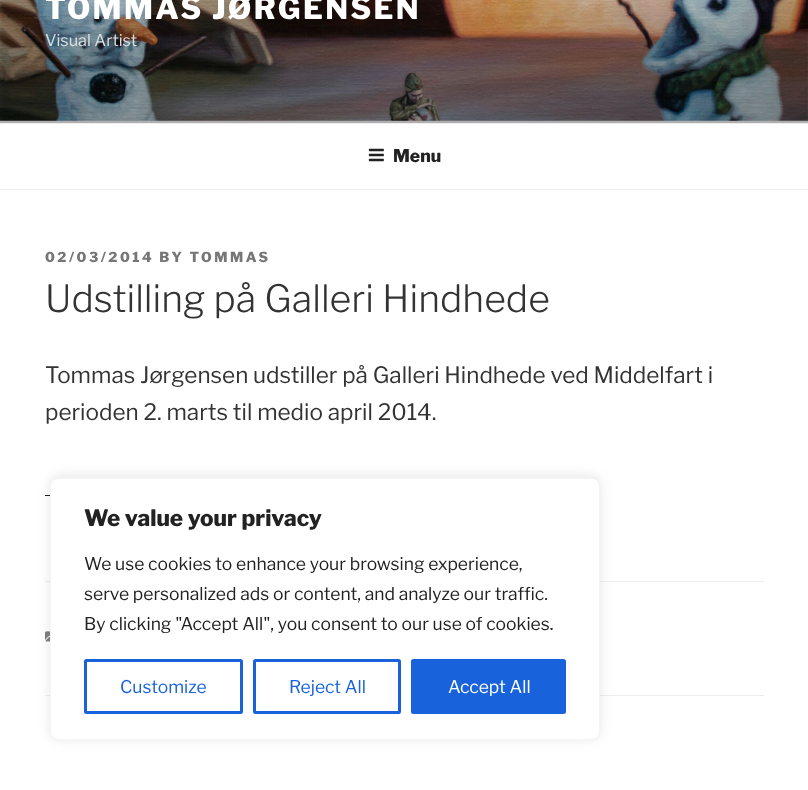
<svg xmlns="http://www.w3.org/2000/svg" width="808" height="790">
<defs>
<linearGradient id="g1" gradientUnits="userSpaceOnUse" x1="404" y1="-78" x2="404" y2="123"><stop offset="0" stop-color="#000" stop-opacity="0"/><stop offset="0.75" stop-color="#000" stop-opacity="0.3"/><stop offset="1" stop-color="#000" stop-opacity="0.3"/></linearGradient>
</defs>
<rect width="100%" height="100%" fill="#fff"/>
<rect y="120" width="808" height="3" fill="#fafafa"/>
<image x="0" y="0" width="808" height="121" href="media/1.png"/>
<rect width="808" height="123" fill="url(#g1)"/>
<text x="45" y="19" style="font-family:Libre Franklin;font-size:30px;font-weight:100;letter-spacing:2.4px;fill:#fff">TOMMAS JØRGENSEN</text>
<text x="45" y="46" style="font-family:'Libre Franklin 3';font-size:16.25px;font-weight:100;fill:#dcdfe1">Visual Artist</text>
<rect y="123" width="808" height="1" fill="#eee"/>
<rect y="189" width="808" height="1" fill="#eee"/>
<image x="368" y="148" width="16" height="14" href="media/2.png"/>
<text x="393" y="162" style="font-family:Libre Franklin;font-size:17.5px;font-weight:100;fill:#222">Menu</text>
<text x="45" y="262" style="font-family:Libre Franklin;font-size:13.75px;font-weight:100;letter-spacing:2.5px;fill:#767676">02/03/2014 BY TOMMAS</text>
<text x="45" y="312" style="font-family:'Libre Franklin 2';font-size:37.5px;font-weight:100;fill:#333">Udstilling på Galleri Hindhede</text>
<text x="45" y="383" style="font-family:'Libre Franklin 3';font-size:22.5px;font-weight:100;fill:#333">Tommas Jørgensen udstiller på Galleri Hindhede ved Middelfart i</text>
<text x="45" y="420" style="font-family:'Libre Franklin 3';font-size:22.5px;font-weight:100;fill:#333">perioden 2. marts til medio april 2014.</text>
<rect x="45" y="495" width="5" height="1" fill="#0f0f0f"/>
<rect x="45" y="581" width="719" height="1" fill="#eee"/>
<rect x="45" y="695" width="719" height="1" fill="#eee"/>
<image x="45" y="631" width="5" height="11" href="media/3.png"/>
<rect x="50" y="476" width="550" height="263" rx="8" fill="#acabab4d" filter="blur(6px)"/>
<rect x="50.5" y="478.5" width="549" height="261" rx="7.5" fill="#fff" stroke="#f4f4f4"/>
<text x="84" y="526" style="font-family:Libre Franklin;font-size:22.5px;font-weight:100;fill:#222">We value your privacy</text>
<text x="84" y="570" style="font-family:'Libre Franklin 3';font-size:17.5px;font-weight:100;fill:#222">We use cookies to enhance your browsing experience,</text>
<text x="84" y="600" style="font-family:'Libre Franklin 3';font-size:17.5px;font-weight:100;fill:#222">serve personalized ads or content, and analyze our traffic.</text>
<text x="84" y="630" style="font-family:'Libre Franklin 3';font-size:17.5px;font-weight:100;fill:#222">By clicking "Accept All", you consent to our use of cookies.</text>
<rect x="85.5" y="660.5" width="156" height="52" rx="1" fill="none" stroke="#1863dc" stroke-width="3"/>
<text x="120" y="693" style="font-family:'Libre Franklin 3';font-size:17.5px;font-weight:100;fill:#1863dc">Customize</text>
<rect x="254.5" y="660.5" width="145" height="52" rx="1" fill="none" stroke="#1863dc" stroke-width="3"/>
<text x="289" y="693" style="font-family:'Libre Franklin 3';font-size:17.5px;font-weight:100;fill:#1863dc">Reject All</text>
<rect x="412.5" y="660.5" width="152" height="52" rx="1" fill="#1863dc" stroke="#1863dc" stroke-width="3"/>
<text x="448" y="693" style="font-family:'Libre Franklin 3';font-size:17.5px;font-weight:100;fill:#fff">Accept All</text>
</svg>
